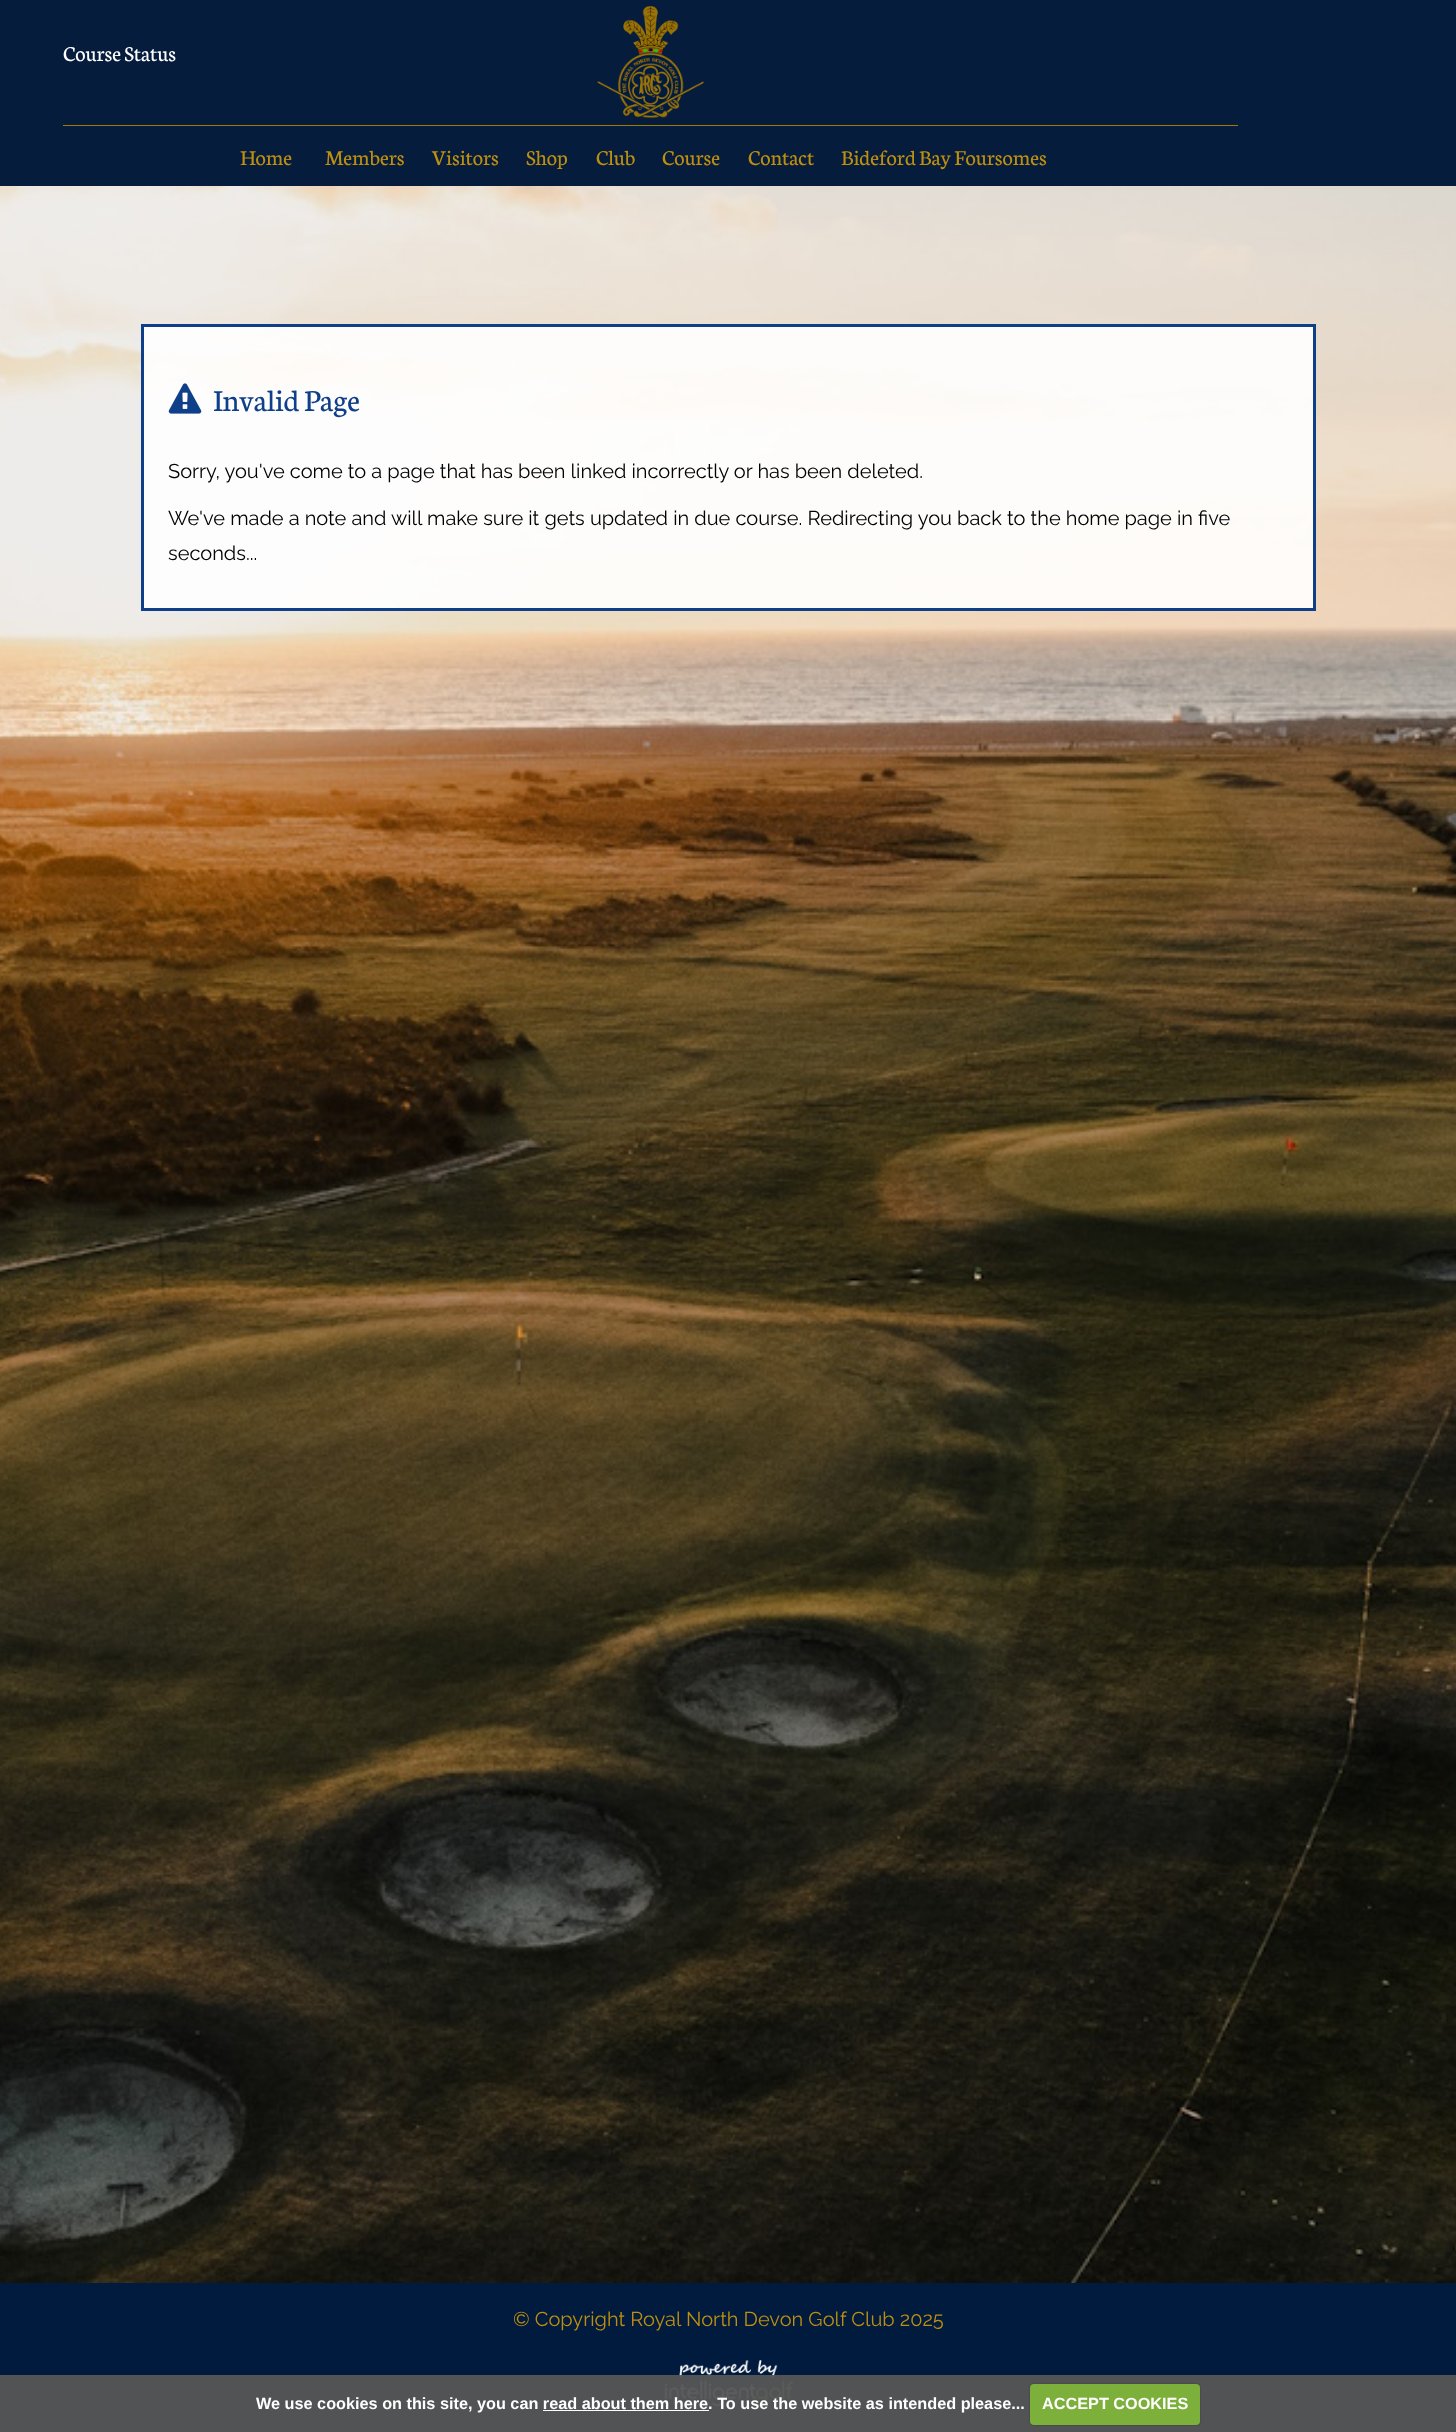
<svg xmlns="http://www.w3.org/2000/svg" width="1456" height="2432">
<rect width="100%" height="100%" fill="#fff"/>
<image x="0" y="186" width="1456" height="2097" href="media/1.png"/>
<rect width="1456" height="186" fill="#061c3d"/>
<text x="63" y="61" style="font-family:Neuton;font-size:22.5px;fill:#fff">Course Status</text>
<image x="597" y="6" width="107" height="112" href="media/2.png"/>
<rect x="63" y="125" width="1175" height="1" fill="#a27a08"/>
<text x="240" y="165" style="font-family:Neuton;font-size:22.5px;fill:#bd8f10">Home</text>
<text x="325" y="165" style="font-family:Neuton;font-size:22.5px;fill:#bd8f10">Members</text>
<text x="432" y="165" style="font-family:Neuton;font-size:22.5px;fill:#bd8f10">Visitors</text>
<text x="526" y="165" style="font-family:Neuton;font-size:22.5px;fill:#bd8f10">Shop</text>
<text x="596" y="165" style="font-family:Neuton;font-size:22.5px;fill:#bd8f10">Club</text>
<text x="662" y="165" style="font-family:Neuton;font-size:22.5px;fill:#bd8f10">Course</text>
<text x="748" y="165" style="font-family:Neuton;font-size:22.5px;fill:#bd8f10">Contact</text>
<text x="841" y="165" style="font-family:Neuton;font-size:22.5px;fill:#bd8f10">Bideford Bay Foursomes</text>
<rect x="142.5" y="325.5" width="1172" height="284" fill="#ffffffe6" stroke="#0e3f88" stroke-width="3"/>
<image x="168" y="383" width="34" height="31" href="media/3.png"/>
<text x="213" y="411" style="font-family:Neuton;font-size:32.5px;fill:#0e3f88">Invalid Page</text>
<text x="168" y="478" style="font-family:Raleway;font-size:20px;fill:#000">Sorry, you've come to a page that has been linked incorrectly or has been deleted.</text>
<text x="168" y="525" style="font-family:Raleway;font-size:20px;fill:#000">We've made a note and will make sure it gets updated in due course. Redirecting you back to the home page in five</text>
<text x="168" y="560" style="font-family:Raleway;font-size:20px;fill:#000">seconds...</text>
<rect y="2283" width="1456" height="149" fill="#001b3e"/>
<text x="513" y="2326" style="font-family:Raleway;font-size:20px;fill:#bd8f10">© Copyright Royal North Devon Golf Club 2025</text>
<image x="664" y="2359" width="130" height="48" href="media/4.png"/>
<rect y="2375" width="1456" height="57" fill="#565656f2"/>
<text x="256" y="2409" style="font-family:Liberation Sans;font-size:16.25px;font-weight:bold;fill:#fff">We use cookies on this site, you can read about them here. To use the website as intended please...</text>
<rect x="1030" y="2384" width="170" height="41" rx="4" fill="#00000040" filter="blur(1px)"/>
<rect x="1030" y="2384" width="170" height="41" rx="4" fill="#7daf3b"/>
<text x="1042" y="2409" style="font-family:Liberation Sans;font-size:16.25px;font-weight:bold;fill:#fff">ACCEPT COOKIES</text>
<rect x="543" y="2410" width="166" height="1" fill="#fff"/>
</svg>
